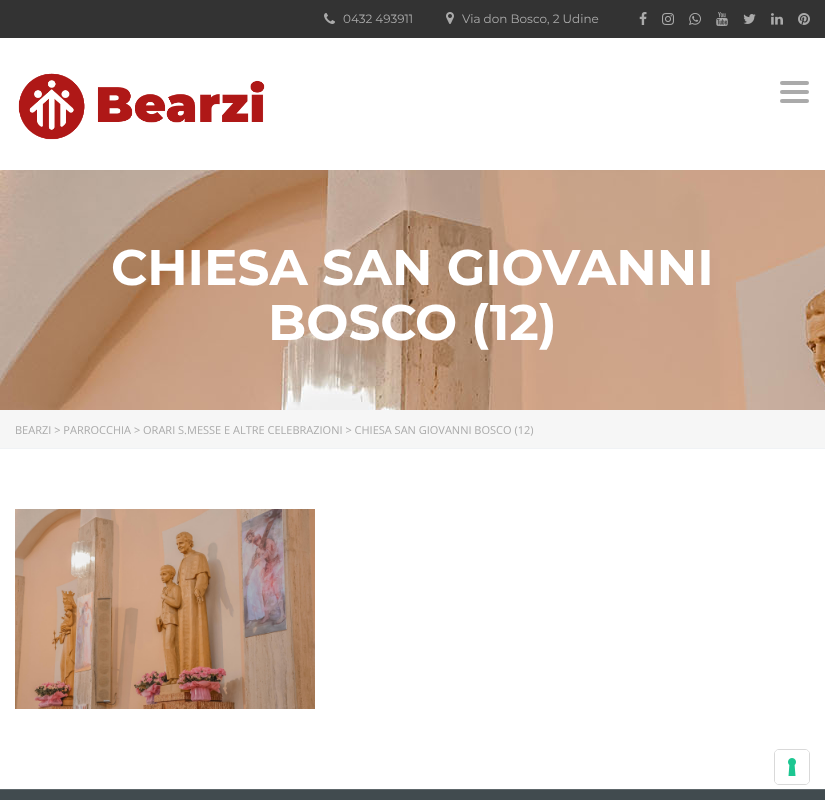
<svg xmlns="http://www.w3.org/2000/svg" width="825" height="800">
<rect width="100%" height="100%" fill="#414b4f"/>
<rect y="38" width="825" height="751" fill="#fff"/>
<rect width="825" height="38" fill="#333"/>
<image x="324" y="13" width="11" height="11" href="media/1.png"/>
<text x="343" y="23" style="font-family:Montserrat;font-size:12px;fill:#aaa">0432 493911</text>
<image x="446" y="12" width="8" height="12" href="media/2.png"/>
<text x="462" y="23" style="font-family:Montserrat;font-size:12px;fill:#aaa">Via don Bosco, 2 Udine</text>
<image x="639" y="12" width="8" height="13" href="media/3.png"/>
<image x="662" y="13" width="12" height="12" href="media/4.png"/>
<image x="689" y="13" width="12" height="12" href="media/5.png"/>
<image x="716" y="12" width="12" height="14" href="media/6.png"/>
<image x="743" y="14" width="13" height="10" href="media/7.png"/>
<image x="771" y="13" width="12" height="12" href="media/8.png"/>
<image x="798" y="13" width="12" height="12" href="media/9.png"/>
<image x="18" y="73" width="247" height="67" href="media/10.png"/>
<rect x="780" y="81" width="29" height="4" rx="2" fill="#aaa"/>
<rect x="780" y="90" width="29" height="4" rx="2" fill="#aaa"/>
<rect x="780" y="99" width="29" height="4" rx="2" fill="#aaa"/>
<image x="0" y="170" width="825" height="240" href="media/11.png"/>
<text x="111" y="285" style="font-family:Montserrat;font-size:50px;font-weight:bold;fill:#fff">CHIESA SAN GIOVANNI</text>
<text x="268" y="340" style="font-family:Montserrat;font-size:50px;font-weight:bold;fill:#fff">BOSCO (12)</text>
<rect y="410" width="825" height="38" fill="#f6f6f6"/>
<rect y="448" width="825" height="1" fill="#f0f2f5"/>
<text x="15" y="434" style="font-family:Open Sans;font-size:11px;fill:#aaa">BEARZI &gt; PARROCCHIA &gt; ORARI S.MESSE E ALTRE CELEBRAZIONI &gt; CHIESA SAN GIOVANNI BOSCO (12)</text>
<image x="15" y="509" width="300" height="200" href="media/12.png"/>
<rect x="774.5" y="749.5" width="35" height="35" rx="4.5" fill="none" stroke="#d9d9d9"/>
<rect x="775" y="750" width="34" height="34" rx="4" fill="#fff"/>
<image x="788" y="758" width="8" height="18" href="media/13.png"/>
<rect y="789" width="825" height="1" fill="#5e676b"/>
</svg>
